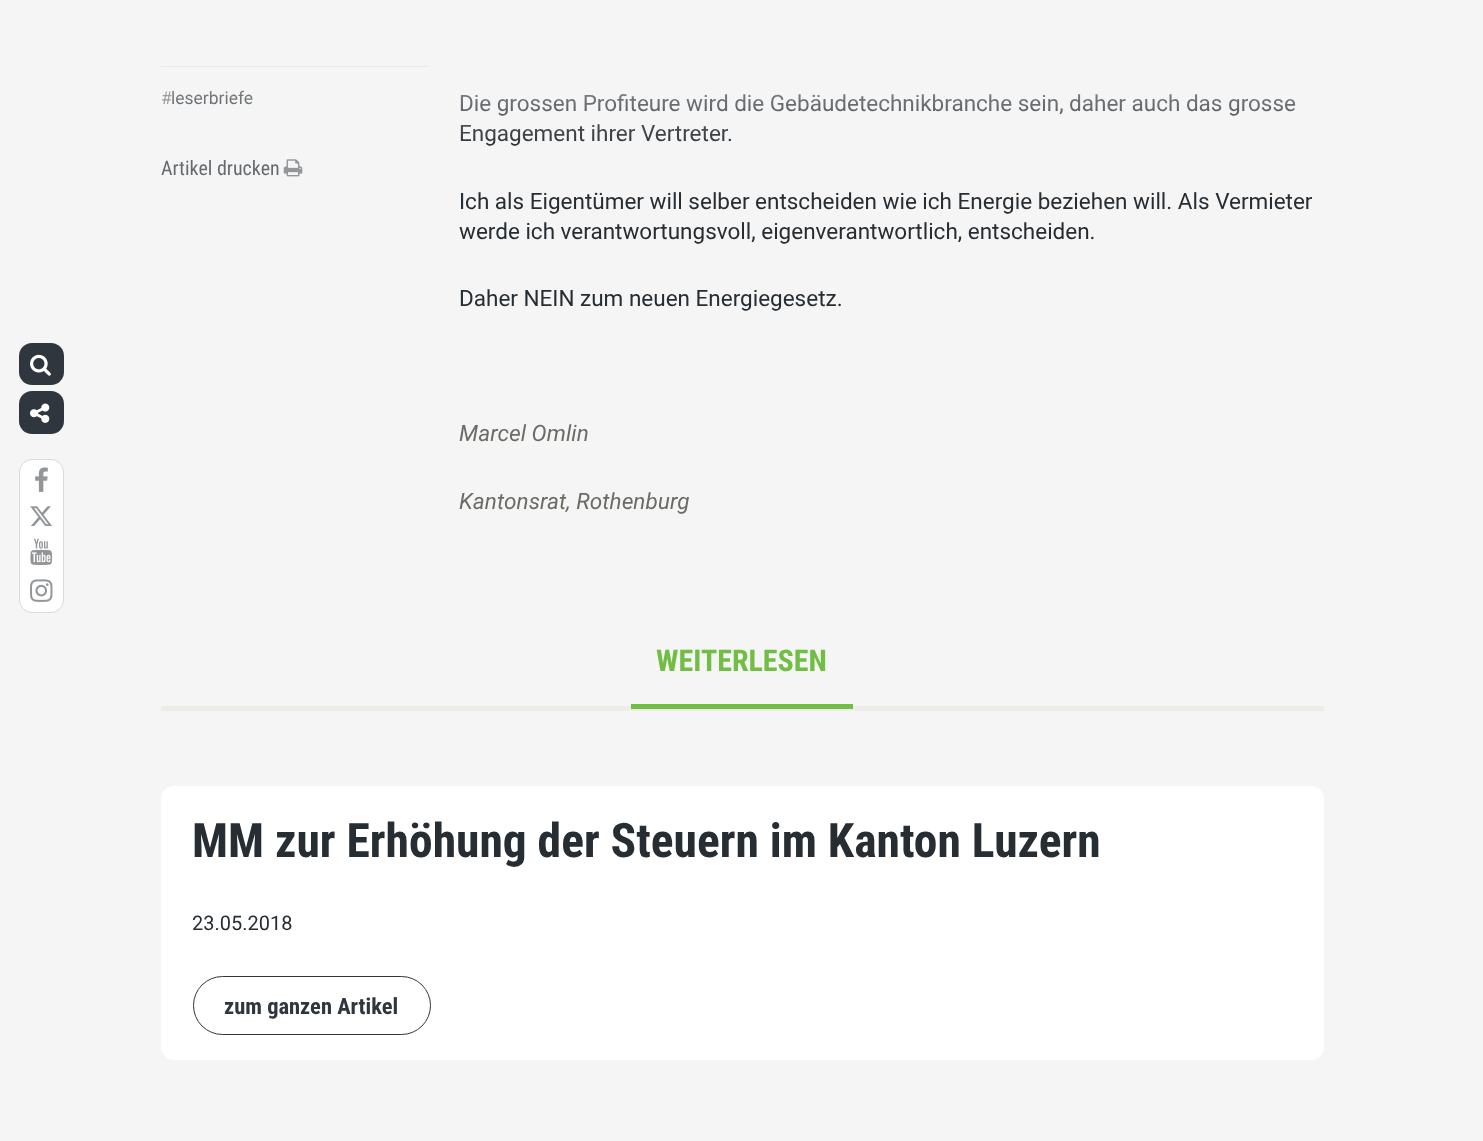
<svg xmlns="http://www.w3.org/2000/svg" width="1483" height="1141">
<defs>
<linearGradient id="g1" gradientUnits="userSpaceOnUse" x1="742" y1="0" x2="742" y2="150"><stop offset="0.1" stop-color="#f5f5f5" stop-opacity="0.95"/><stop offset="1" stop-color="#f5f5f5" stop-opacity="0"/></linearGradient>
</defs>
<rect width="100%" height="100%" fill="#f5f5f5"/>
<rect x="161" y="66" width="267" height="1" fill="#d9dadb"/>
<text x="161" y="104" style="font-family:Roboto;font-size:17.5px;fill:#656b70">#</text>
<text x="171" y="104" style="font-family:Roboto;font-size:17.5px;fill:#262d33">leserbriefe</text>
<text x="459" y="111" style="font-family:Roboto;font-size:22.5px;fill:#262d33">Die grossen Profiteure wird die Gebäudetechnikbranche sein, daher auch das grosse</text>
<text x="459" y="141" style="font-family:Roboto;font-size:22.5px;fill:#262d33">Engagement ihrer Vertreter.</text>
<rect x="161" y="66" width="1135" height="80" fill="url(#g1)"/>
<rect x="19" y="343" width="45" height="42" rx="13" fill="#30363d"/>
<image x="30" y="354" width="21" height="22" href="media/1.png"/>
<rect x="19" y="391" width="45" height="43" rx="13" fill="#30363d"/>
<image x="30" y="403" width="20" height="20" href="media/2.png"/>
<rect x="19.5" y="459.5" width="44" height="153" rx="12.5" fill="#fff" stroke="#d9dadb"/>
<image x="35" y="467" width="13" height="25" href="media/3.png"/>
<image x="30" y="506" width="22" height="20" href="media/4.png"/>
<image x="30" y="538" width="23" height="27" href="media/5.png"/>
<image x="30" y="579" width="23" height="23" href="media/6.png"/>
<text x="161" y="175" style="font-family:Roboto Condensed;font-size:20px;fill:#656b70">Artikel drucken</text>
<image x="283" y="159" width="20" height="18" href="media/7.png"/>
<text x="459" y="209" style="font-family:Roboto;font-size:22.5px;fill:#262d33">Ich als Eigentümer will selber entscheiden wie ich Energie beziehen will. Als Vermieter</text>
<text x="459" y="239" style="font-family:Roboto;font-size:22.5px;fill:#262d33">werde ich verantwortungsvoll, eigenverantwortlich, entscheiden.</text>
<text x="459" y="306" style="font-family:Roboto;font-size:22.5px;fill:#262d33">Daher NEIN zum neuen Energiegesetz.</text>
<text x="459" y="441" style="font-family:Roboto;font-size:22.5px;font-style:italic;fill:#6c6b66">Marcel Omlin</text>
<text x="459" y="509" style="font-family:Roboto;font-size:22.5px;font-style:italic;fill:#6c6b66">Kantonsrat, Rothenburg</text>
<rect x="161" y="706" width="1163" height="5" fill="#edece7"/>
<text x="656" y="671" style="font-family:Roboto Condensed;font-size:30px;font-weight:bold;fill:#72be44">WEITERLESEN</text>
<rect x="631" y="704" width="222" height="5" fill="#72be44"/>
<rect x="161" y="786" width="1163" height="274" rx="13" fill="#fff"/>
<text x="192" y="857" style="font-family:Roboto Condensed;font-size:47.5px;font-weight:bold;fill:#262d33">MM zur Erhöhung der Steuern im Kanton Luzern</text>
<text x="192" y="930" style="font-family:Roboto;font-size:20px;fill:#262d33">23.05.2018</text>
<rect x="193.5" y="976.5" width="237" height="58" rx="29" fill="none" stroke="#30363d"/>
<text x="224" y="1014" style="font-family:Roboto Condensed;font-size:22.5px;font-weight:bold;fill:#30363d">zum ganzen Artikel</text>
</svg>
